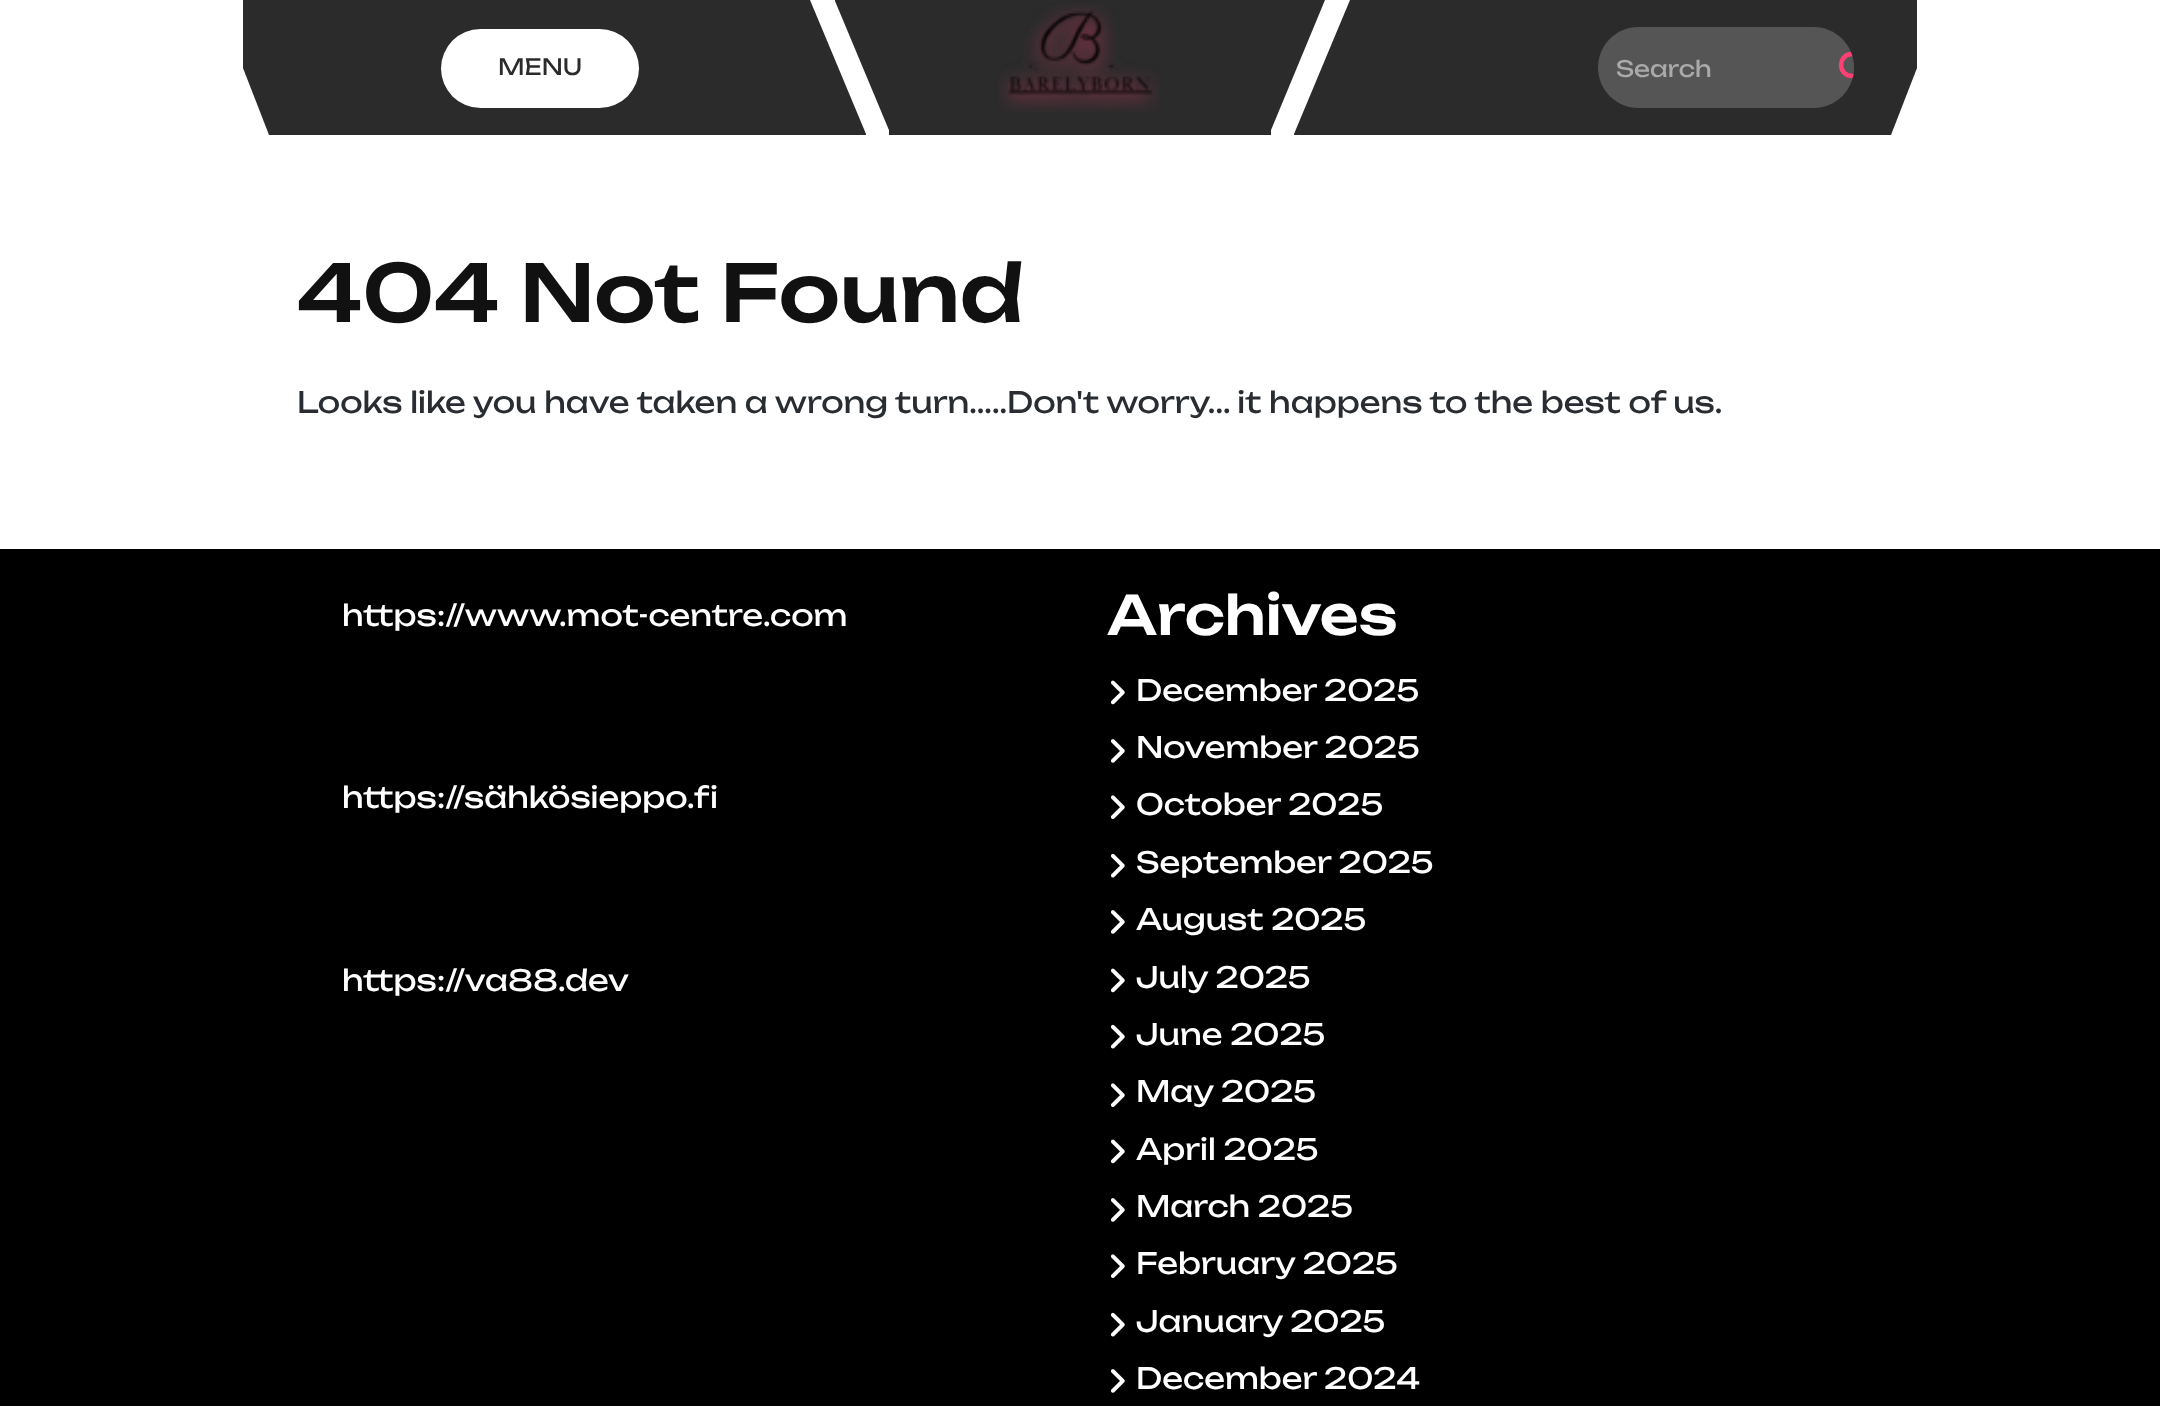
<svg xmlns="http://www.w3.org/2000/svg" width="2160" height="1406">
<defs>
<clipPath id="clip1"><path d="M1782 27h31.5c22.5 0 40.5 18 40.5 40.5c0 22.5-18 40.5-40.5 40.5h-31.5z"/></clipPath>
</defs>
<rect width="100%" height="100%" fill="#fff"/>
<rect x="374" width="436" height="135" fill="#2b2b2b"/>
<path d="M243 0v68l26 67h105v-135z" fill="#2b2b2b"/>
<rect x="441" y="29" width="198" height="79" rx="39.5" fill="#fff"/>
<text x="498" y="75" style="font-family:Unbounded;font-size:22.5px;fill:#2b2b2b">MENU</text>
<path d="M810 0v135h56v-1z" fill="#2b2b2b"/>
<rect x="889" width="382" height="135" fill="#2b2b2b"/>
<path d="M835 0h56v135l-56-134z" fill="#2b2b2b"/>
<image x="998" y="3" width="162" height="110" href="media/1.png"/>
<path d="M1269 0v135l56-135z" fill="#2b2b2b"/>
<rect x="1350" width="437" height="135" fill="#2b2b2b"/>
<path d="M1350 0l-56 134v1h56z" fill="#2b2b2b"/>
<path d="M1638.5 27h143.5v81h-143.5c-22.5 0-40.5-18-40.5-40.5c0-22.5 18-40.5 40.5-40.5z" fill="#555"/>
<text x="1616" y="77" style="font-family:Unbounded;font-size:22.5px;fill:#aaa">Search</text>
<path d="M1787 0v135h104l26-67v-68z" fill="#2b2b2b"/>
<path d="M1782 27h31.5c22.5 0 40.5 18 40.5 40.5c0 22.5-18 40.5-40.5 40.5h-31.5z" fill="#555"/>
<g clip-path="url(#clip1)">
<path d="M1852 76c14.5 0 14.5-22 0-22c-14.5 0-14.5 22 0 22z" fill="none" stroke="#ff4074" stroke-width="4.5" stroke-linecap="round" stroke-linejoin="round"/>
</g>
<text x="297" y="322" style="font-family:Unbounded;font-size:78.75px;font-weight:500;fill:#111">404 Not Found</text>
<text x="297" y="413" style="font-family:Unbounded;font-size:29.25px;fill:#292d32">Looks like you have taken a wrong turn.....Don't worry... it happens to the best of us.</text>
<rect y="549" width="2160" height="857" fill="#000"/>
<text x="342" y="626" style="font-family:Unbounded;font-size:29.25px;fill:#fff">https://www.mot-centre.com</text>
<text x="342" y="808" style="font-family:Unbounded;font-size:29.25px;fill:#fff">https://sähkösieppo.fi</text>
<text x="342" y="991" style="font-family:Unbounded;font-size:29.25px;fill:#fff">https://va88.dev</text>
<text x="1107" y="635" style="font-family:Unbounded;font-size:54px;font-weight:500;fill:#fff">Archives</text>
<image x="1110" y="680" width="15" height="25" href="media/2.png"/>
<text x="1136" y="701" style="font-family:Unbounded;font-size:29.25px;fill:#fff">December 2025</text>
<image x="1111" y="739" width="14" height="24" href="media/3.png"/>
<text x="1136" y="758" style="font-family:Unbounded;font-size:29.25px;fill:#fff">November 2025</text>
<image x="1110" y="795" width="15" height="24" href="media/4.png"/>
<text x="1136" y="815" style="font-family:Unbounded;font-size:29.25px;fill:#fff">October 2025</text>
<image x="1110" y="853" width="15" height="25" href="media/5.png"/>
<text x="1136" y="873" style="font-family:Unbounded;font-size:29.25px;fill:#fff">September 2025</text>
<image x="1111" y="910" width="14" height="24" href="media/3.png"/>
<text x="1136" y="930" style="font-family:Unbounded;font-size:29.25px;fill:#fff">August 2025</text>
<image x="1110" y="968" width="15" height="25" href="media/2.png"/>
<text x="1136" y="988" style="font-family:Unbounded;font-size:29.25px;fill:#fff">July 2025</text>
<image x="1110" y="1024" width="15" height="25" href="media/5.png"/>
<text x="1136" y="1045" style="font-family:Unbounded;font-size:29.25px;fill:#fff">June 2025</text>
<image x="1110" y="1083" width="15" height="24" href="media/4.png"/>
<text x="1136" y="1102" style="font-family:Unbounded;font-size:29.25px;fill:#fff">May 2025</text>
<image x="1110" y="1139" width="15" height="25" href="media/2.png"/>
<text x="1136" y="1160" style="font-family:Unbounded;font-size:29.25px;fill:#fff">April 2025</text>
<image x="1111" y="1198" width="14" height="24" href="media/3.png"/>
<text x="1136" y="1217" style="font-family:Unbounded;font-size:29.25px;fill:#fff">March 2025</text>
<image x="1110" y="1254" width="15" height="24" href="media/4.png"/>
<text x="1136" y="1274" style="font-family:Unbounded;font-size:29.25px;fill:#fff">February 2025</text>
<image x="1110" y="1312" width="15" height="25" href="media/5.png"/>
<text x="1136" y="1332" style="font-family:Unbounded;font-size:29.25px;fill:#fff">January 2025</text>
<image x="1111" y="1369" width="14" height="24" href="media/3.png"/>
<text x="1136" y="1389" style="font-family:Unbounded;font-size:29.25px;fill:#fff">December 2024</text>
</svg>
